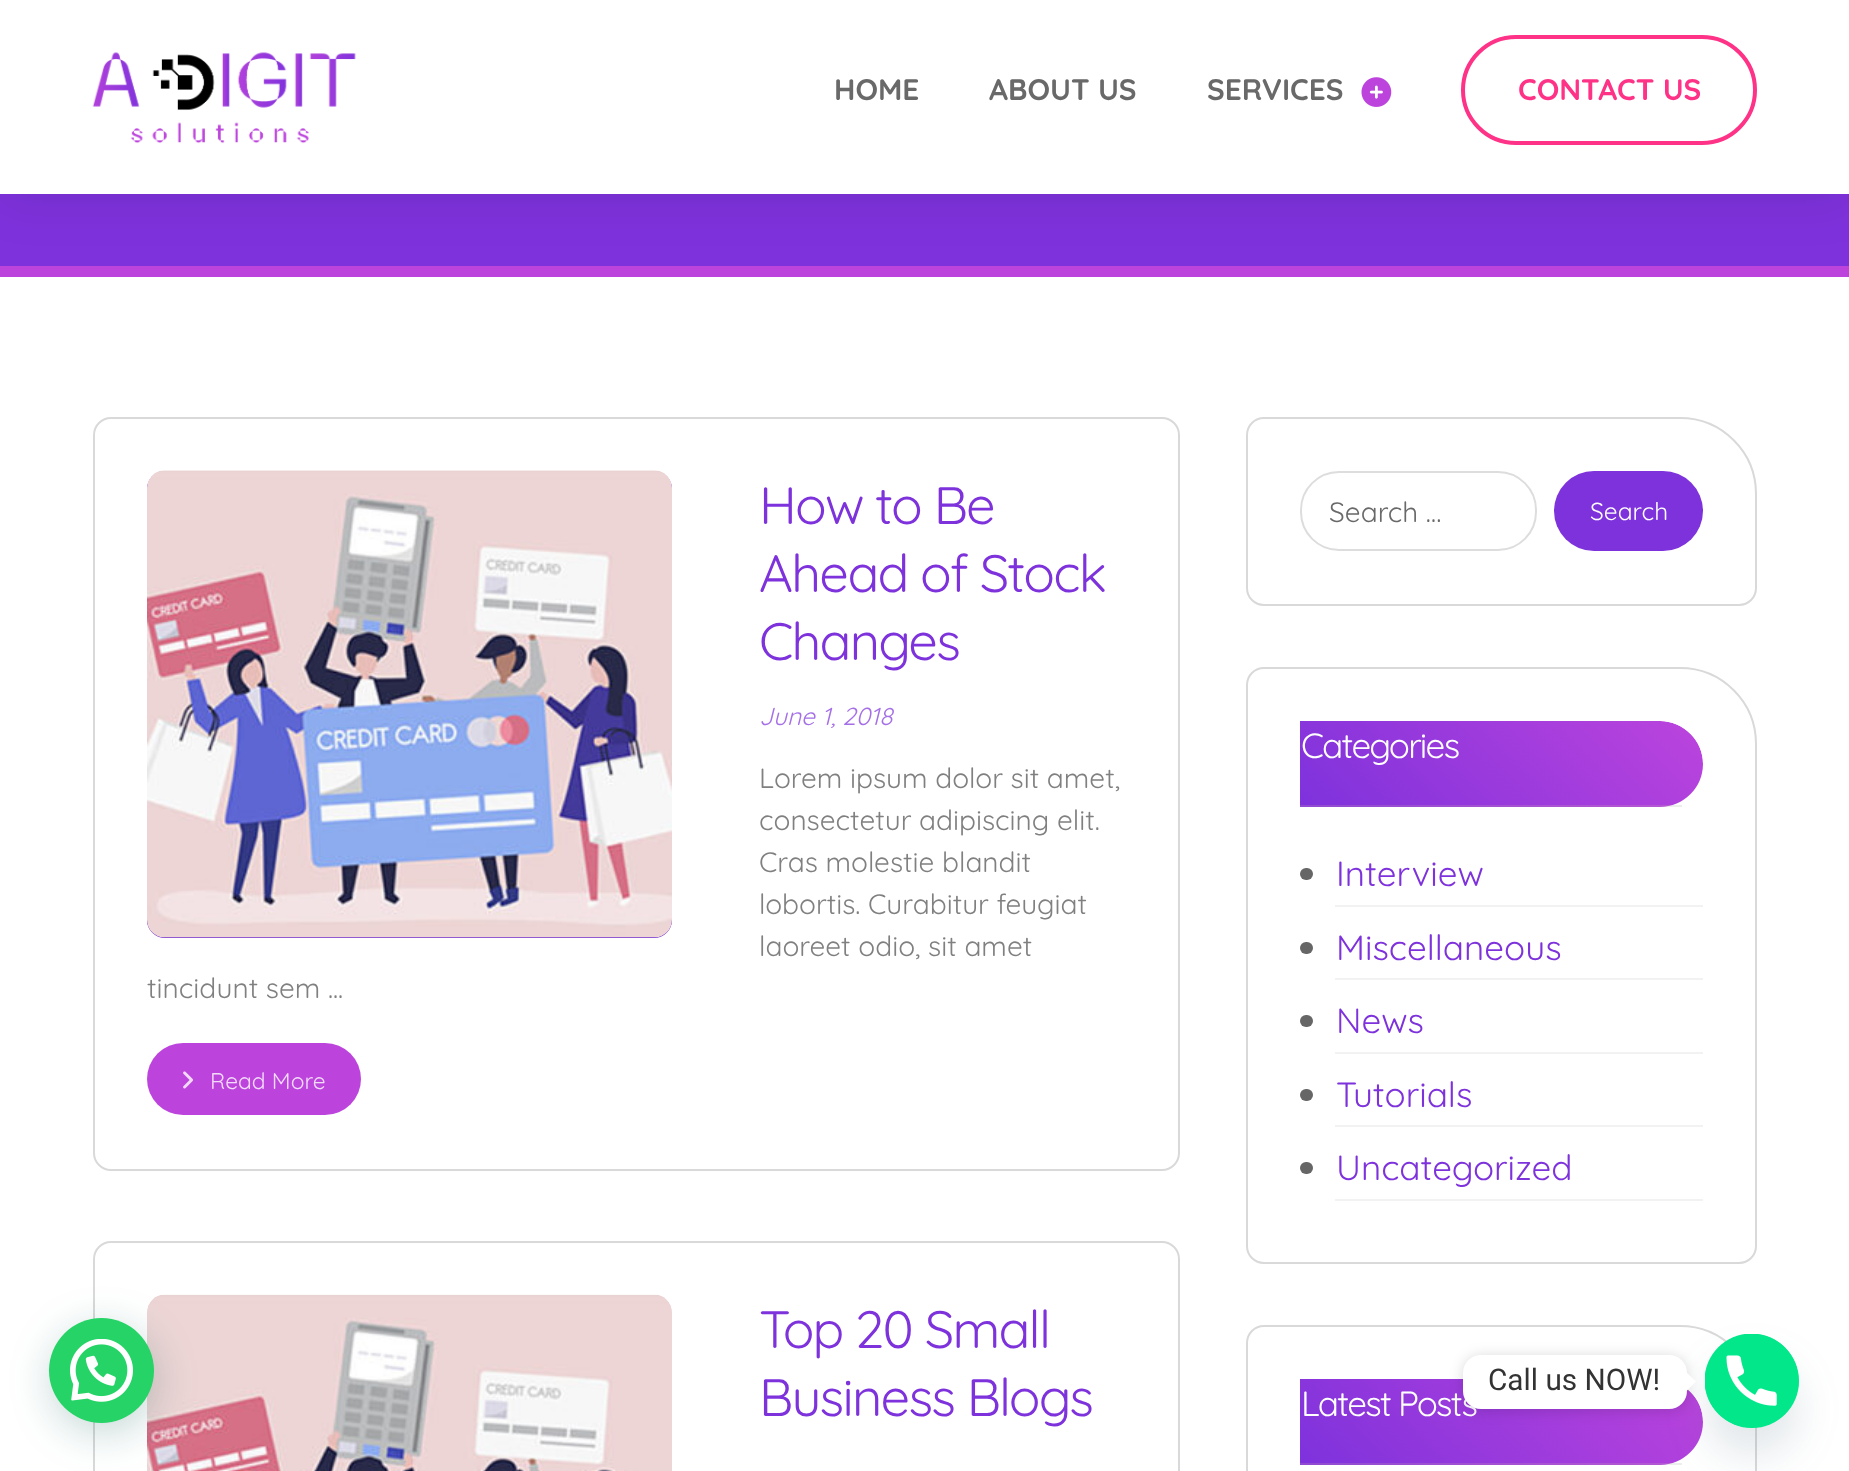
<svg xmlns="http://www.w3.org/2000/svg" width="1849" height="1471">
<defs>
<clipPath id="clip1"><path d="M1300 721h360c23.5 0 43 19.5 43 43c0 23.5-19.5 43-43 43h-360z"/></clipPath>
<linearGradient id="g1" gradientUnits="userSpaceOnUse" x1="1380" y1="885" x2="1623" y2="641"><stop offset="0" stop-color="#7e32dc"/><stop offset="1" stop-color="#bc44dd"/></linearGradient>
<linearGradient id="g2" gradientUnits="userSpaceOnUse" x1="1380" y1="969" x2="1623" y2="725"><stop offset="0" stop-color="#8649d1"/><stop offset="1" stop-color="#b858d2"/></linearGradient>
<clipPath id="clip2"><path d="M1300 1379h360c23.5 0 43 19.5 43 43c0 23.5-19.5 43-43 43h-360z"/></clipPath>
<linearGradient id="g3" gradientUnits="userSpaceOnUse" x1="1380" y1="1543" x2="1623" y2="1299"><stop offset="0" stop-color="#7e32dc"/><stop offset="1" stop-color="#bc44dd"/></linearGradient>
<linearGradient id="g4" gradientUnits="userSpaceOnUse" x1="1380" y1="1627" x2="1623" y2="1383"><stop offset="0" stop-color="#8649d1"/><stop offset="1" stop-color="#b858d2"/></linearGradient>
</defs>
<rect width="100%" height="100%" fill="#fff"/>
<rect x="1660" y="1463" width="22" height="2" fill="#ededed"/>
<rect x="1660" y="805" width="22" height="2" fill="#ededed"/>
<rect x="94" y="1242" width="1085" height="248" rx="17" fill="none" stroke="#d9d9d9" stroke-width="2"/>
<image x="147" y="1294" width="525" height="177" href="media/6.png"/>
<rect x="51" y="1328" width="105" height="105" rx="52.5" fill="#075e543d" filter="blur(21px)"/>
<circle cx="101.5" cy="1370.5" r="52.5" fill="#25d366"/>
<image x="70" y="1339" width="63" height="63" href="media/1.png"/>
<rect y="194" width="1849" height="72" fill="#7e32dc"/>
<rect y="266" width="1849" height="11" fill="#bc44dd"/>
<rect y="9" width="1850" height="194" fill="#00000014" filter="blur(23.5px)"/>
<rect width="1849" height="194" fill="#fff"/>
<image x="92" y="52" width="264" height="92" href="media/2.png"/>
<text x="834" y="100" style="font-family:Quicksand;font-size:29.75px;font-weight:bold;fill:#696969">HOME</text>
<text x="989" y="100" style="font-family:Quicksand;font-size:29.75px;font-weight:bold;fill:#696969">ABOUT US</text>
<text x="1207" y="100" style="font-family:Quicksand;font-size:29.75px;font-weight:bold;fill:#696969">SERVICES</text>
<image x="1361" y="77" width="31" height="30" href="media/3.png"/>
<rect x="1463" y="37" width="292" height="106" rx="53" fill="none" stroke="#fe3286" stroke-width="4"/>
<text x="1518" y="100" style="font-family:Quicksand;font-size:29.75px;font-weight:bold;fill:#fe3286">CONTACT US</text>
<rect x="94" y="418" width="1085" height="752" rx="17" fill="none" stroke="#d9d9d9" stroke-width="2"/>
<rect x="147" y="471" width="525" height="467" rx="18" fill="#7e32dc"/>
<rect x="147" y="471" width="525" height="467" rx="18" fill="#a7a7a733"/>
<image x="147" y="470" width="525" height="468" href="media/4.png"/>
<text x="759" y="524" style="font-family:Quicksand;font-size:52.5px;letter-spacing:-1.75px;fill:#7e32dc">How to Be</text>
<text x="759" y="592" style="font-family:Quicksand;font-size:52.5px;letter-spacing:-1.75px;fill:#7e32dc">Ahead of Stock</text>
<text x="759" y="660" style="font-family:Quicksand;font-size:52.5px;letter-spacing:-1.75px;fill:#7e32dc">Changes</text>
<text x="759" y="725" style="font-family:Quicksand;font-size:24.5px;font-style:italic;fill:#a570e7">June 1, 2018</text>
<text x="759" y="788" style="font-family:Quicksand;font-size:28px;fill:#808080">Lorem ipsum dolor sit amet,</text>
<text x="759" y="830" style="font-family:Quicksand;font-size:28px;fill:#808080">consectetur adipiscing elit.</text>
<text x="759" y="872" style="font-family:Quicksand;font-size:28px;fill:#808080">Cras molestie blandit</text>
<text x="759" y="914" style="font-family:Quicksand;font-size:28px;fill:#808080">lobortis. Curabitur feugiat</text>
<text x="759" y="956" style="font-family:Quicksand;font-size:28px;fill:#808080">laoreet odio, sit amet</text>
<text x="147" y="998" style="font-family:Quicksand;font-size:28px;fill:#808080">tincidunt sem ...</text>
<rect x="147" y="1043" width="214" height="72" rx="36" fill="#bc44dd"/>
<image x="183" y="1071" width="10" height="18" href="media/5.png"/>
<text x="210" y="1089" style="font-family:Quicksand;font-size:22.75px;fill:#f2daf8">Read More</text>
<text x="759" y="1348" style="font-family:Quicksand;font-size:52.5px;letter-spacing:-1.75px;fill:#7e32dc">Top 20 Small</text>
<text x="759" y="1416" style="font-family:Quicksand;font-size:52.5px;letter-spacing:-1.75px;fill:#7e32dc">Business Blogs</text>
<path d="M1264 418h416c42 0 76 34 76 76v94c0 9.5-7.5 17-17 17h-475c-9.5 0-17-7.5-17-17v-153c0-9.5 7.5-17 17-17z" fill="none" stroke="#d9d9d9" stroke-width="2"/>
<rect x="1301" y="472" width="235" height="78" rx="38" fill="none" stroke="#ddd" stroke-width="2"/>
<text x="1329" y="522" style="font-family:Quicksand;font-size:28px;fill:#696969">Search …</text>
<rect x="1554" y="471" width="149" height="80" rx="40" fill="#7e32dc"/>
<text x="1590" y="520" style="font-family:Quicksand;font-size:24.5px;fill:#fff">Search</text>
<path d="M1264 668h416c42 0 76 34 76 76v502c0 9.5-7.5 17-17 17h-475c-9.5 0-17-7.5-17-17v-561c0-9.5 7.5-17 17-17z" fill="none" stroke="#d9d9d9" stroke-width="2"/>
<g clip-path="url(#clip1)">
<path d="M1300 721h360c23.5 0 43 19.5 43 43v41h-403z" fill="url(#g1)"/>
<rect x="1300" y="805" width="373" height="2" fill="url(#g2)"/>
</g>
<text x="1301" y="758" style="font-family:Quicksand;font-size:35px;letter-spacing:-1.75px;fill:#fff">Categories</text>
<rect x="1300" y="868" width="13" height="12" rx="6" fill="#666"/>
<rect x="1335" y="905" width="368" height="2" fill="#f2f2f2"/>
<text x="1336" y="886" style="font-family:Quicksand;font-size:35px;fill:#7e32dc">Interview</text>
<rect x="1300" y="942" width="13" height="12" rx="6" fill="#666"/>
<rect x="1335" y="978" width="368" height="2" fill="#f2f2f2"/>
<text x="1336" y="960" style="font-family:Quicksand;font-size:35px;fill:#7e32dc">Miscellaneous</text>
<rect x="1300" y="1015" width="13" height="12" rx="6" fill="#666"/>
<rect x="1335" y="1052" width="368" height="2" fill="#f2f2f2"/>
<text x="1336" y="1033" style="font-family:Quicksand;font-size:35px;fill:#7e32dc">News</text>
<rect x="1300" y="1089" width="13" height="12" rx="6" fill="#666"/>
<rect x="1335" y="1125" width="368" height="2" fill="#f2f2f2"/>
<text x="1336" y="1107" style="font-family:Quicksand;font-size:35px;fill:#7e32dc">Tutorials</text>
<rect x="1300" y="1162" width="13" height="12" rx="6" fill="#666"/>
<rect x="1335" y="1199" width="368" height="2" fill="#f2f2f2"/>
<text x="1336" y="1180" style="font-family:Quicksand;font-size:35px;fill:#7e32dc">Uncategorized</text>
<path d="M1264 1326h416c42 0 76 34 76 76v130c0 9.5-7.5 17-17 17h-475c-9.5 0-17-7.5-17-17v-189c0-9.5 7.5-17 17-17z" fill="none" stroke="#d9d9d9" stroke-width="2"/>
<g clip-path="url(#clip2)">
<path d="M1300 1379h360c23.5 0 43 19.5 43 43v41h-403z" fill="url(#g3)"/>
<rect x="1300" y="1463" width="373" height="2" fill="url(#g4)"/>
</g>
<text x="1301" y="1416" style="font-family:Quicksand;font-size:35px;letter-spacing:-1.75px;fill:#fff">Latest Posts</text>
<rect x="1705" y="1362" width="94" height="94" rx="47" fill="#49687e29" filter="blur(21px)"/>
<circle cx="1752" cy="1381" r="47" fill="#03e78b"/>
<image x="1705" y="1334" width="94" height="94" href="media/7.png"/>
<rect x="1463" y="1356" width="224" height="55" rx="18" fill="#00000026" filter="blur(7px)"/>
<rect x="1463" y="1355" width="224" height="54" rx="18" fill="#fff"/>
<text x="1488" y="1390" style="font-family:Roboto;font-size:29.75px;fill:#333">Call us NOW!</text>
<path d="M1687 1390.5v-17.5l9 8.5z" fill="#fff"/>
</svg>
